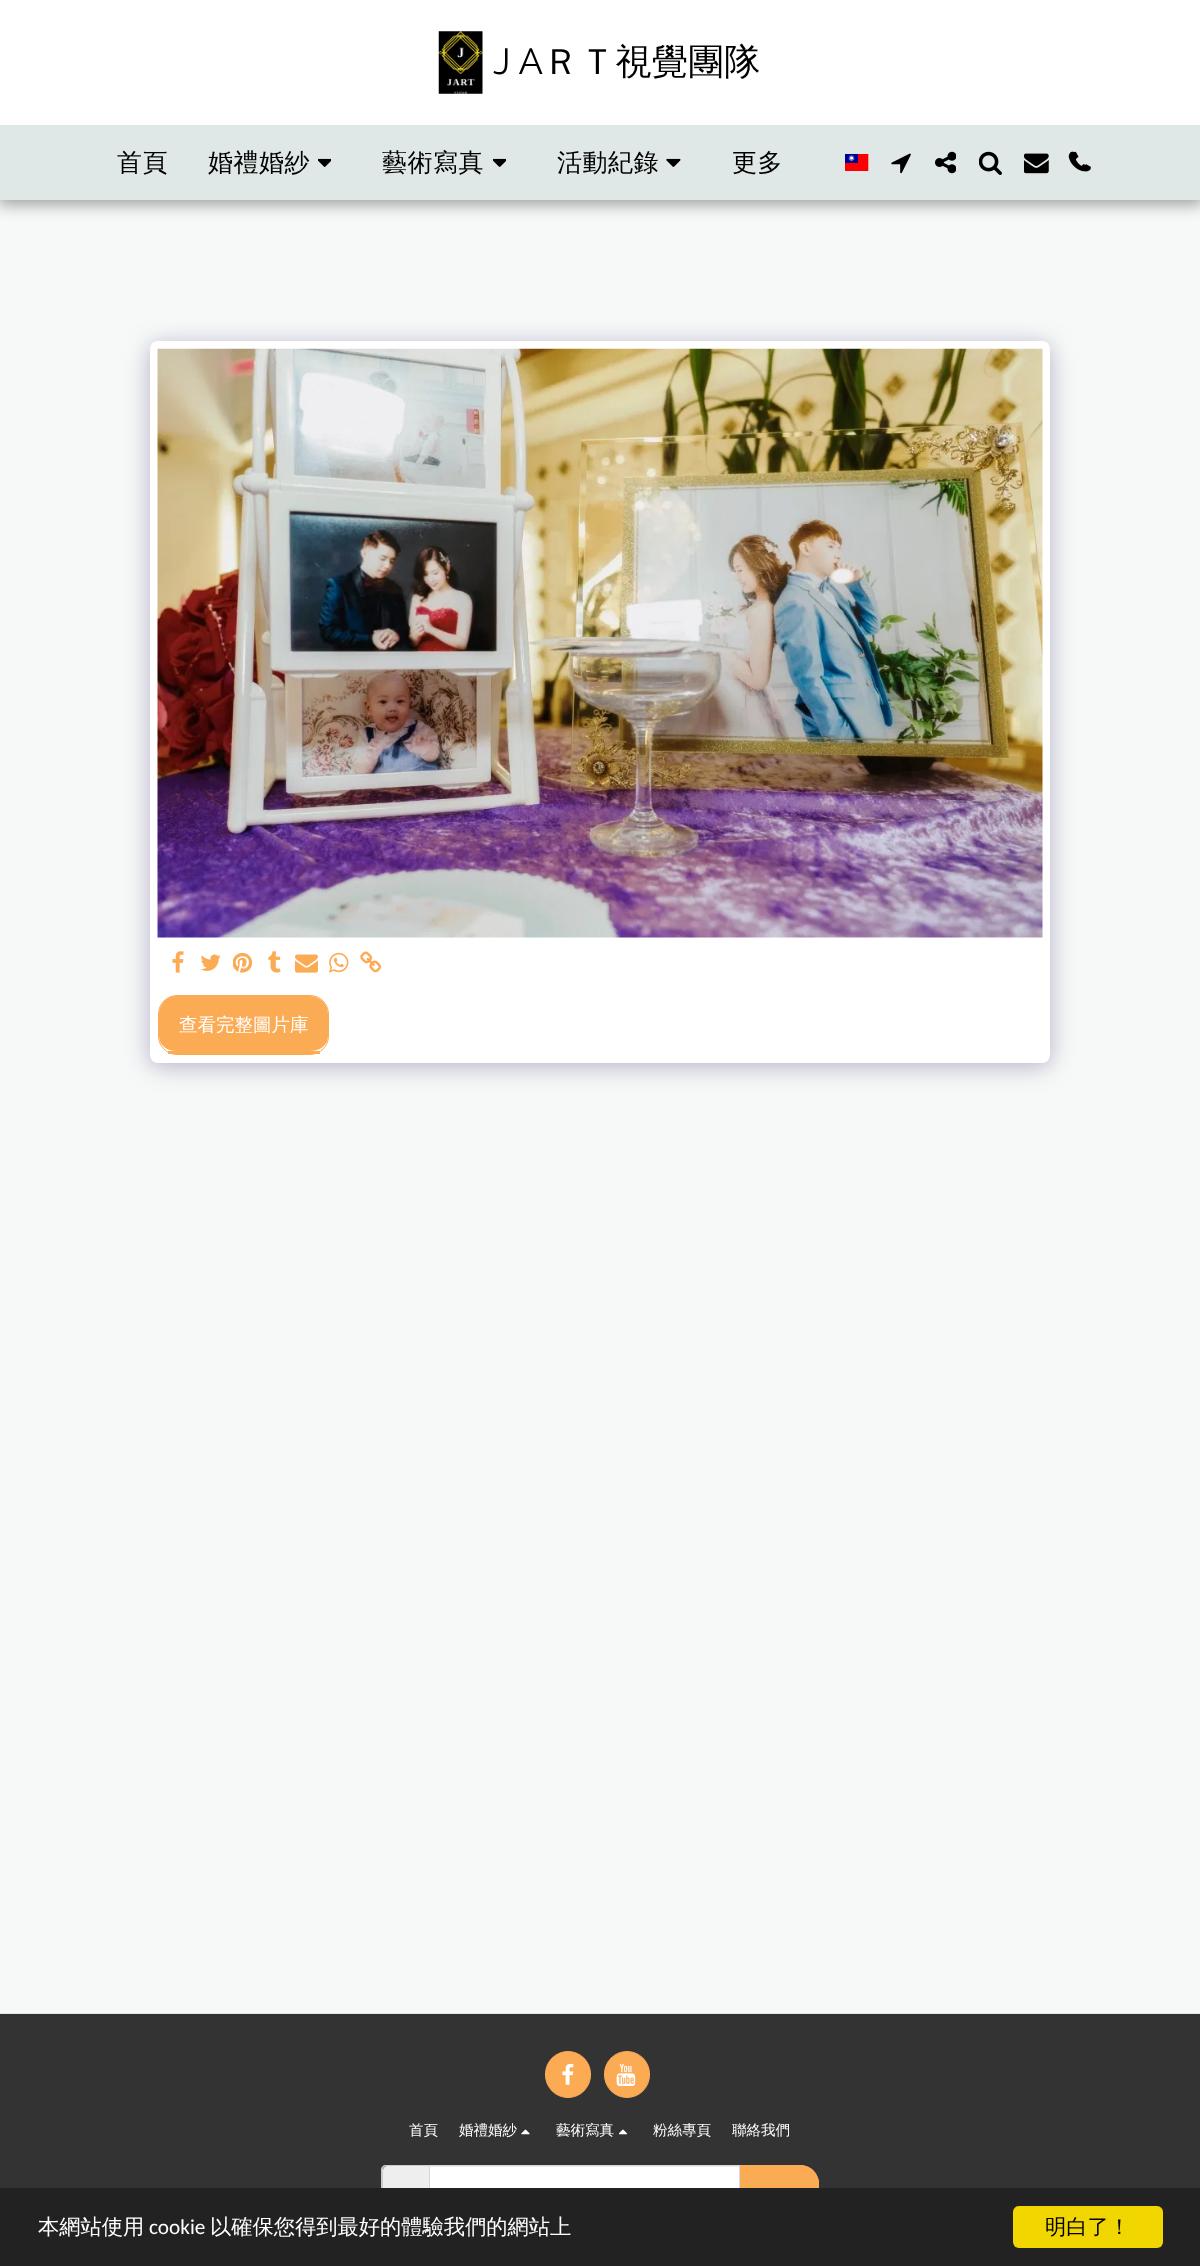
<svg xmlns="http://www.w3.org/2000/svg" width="1200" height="2266">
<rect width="100%" height="100%" fill="#f7f9f8"/>
<rect x="-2" width="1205" height="205" fill="#00000059" filter="blur(7.5px)"/>
<rect y="125" width="1200" height="75" fill="#dfe8e6"/>
<rect width="1200" height="125" fill="#fff"/>
<image x="438" y="31" width="45" height="63" href="media/1.png"/>
<text x="493" y="74" style="font-family:Raleway;font-size:36.25px;fill:#000">J A</text>
<text x="543" y="74" style="font-family:WenQuanYi Zen Hei;font-size:36.25px;font-weight:500;fill:#000">ＲＴ視覺團隊</text>
<text x="117" y="171" style="font-family:WenQuanYi Zen Hei;font-size:25px;font-weight:500;letter-spacing:0.5px;fill:#000">首頁</text>
<text x="208" y="171" style="font-family:WenQuanYi Zen Hei;font-size:25px;font-weight:500;letter-spacing:0.5px;fill:#000">婚禮婚紗</text>
<image x="318" y="158" width="13" height="9" href="media/2.png"/>
<text x="382" y="171" style="font-family:WenQuanYi Zen Hei;font-size:25px;font-weight:500;letter-spacing:0.5px;fill:#000">藝術寫真</text>
<image x="493" y="158" width="13" height="9" href="media/2.png"/>
<text x="557" y="171" style="font-family:WenQuanYi Zen Hei;font-size:25px;font-weight:500;letter-spacing:0.5px;fill:#000">活動紀錄</text>
<image x="666" y="158" width="15" height="9" href="media/3.png"/>
<text x="732" y="171" style="font-family:WenQuanYi Zen Hei;font-size:25px;font-weight:500;letter-spacing:0.5px;fill:#000">更多</text>
<image x="845" y="154" width="24" height="17" href="media/4.png"/>
<image x="891" y="153" width="20" height="21" href="media/5.png"/>
<image x="935" y="151" width="21" height="23" href="media/6.png"/>
<image x="979" y="151" width="23" height="24" href="media/7.png"/>
<image x="1024" y="153" width="25" height="21" href="media/8.png"/>
<image x="1073" y="151" width="18" height="21" href="media/9.png"/>
<image x="1068" y="151" width="18" height="21" href="media/10.png"/>
<rect x="150" y="345" width="900" height="721" rx="8" fill="#4d3f7a66" filter="blur(12.5px)"/>
<rect x="150" y="341" width="900" height="722" rx="8" fill="#fff"/>
<image x="157" y="348" width="886" height="590" href="media/11.png"/>
<image x="172" y="951" width="12" height="22" href="media/12.png"/>
<image x="200" y="954" width="21" height="17" href="media/13.png"/>
<image x="233" y="952" width="20" height="21" href="media/14.png"/>
<image x="268" y="951" width="13" height="22" href="media/15.png"/>
<image x="295" y="954" width="23" height="19" href="media/16.png"/>
<image x="329" y="952" width="20" height="21" href="media/17.png"/>
<image x="360" y="951" width="21" height="22" href="media/18.png"/>
<path d="M176 996h134c10 0 18 8 18 18v22c0 9-8 15-18 15h-134c-9 0-17-6-17-15v-22c0-10 8-18 17-18z" fill="#fcab55"/>
<rect x="158.5" y="995.5" width="170" height="59" rx="18.5" fill="none" stroke="#fcab55"/>
<rect x="168" y="1051" width="152" height="3" fill="#fcab55"/>
<text x="179" y="1031" style="font-family:WenQuanYi Zen Hei;font-size:18.5px;font-weight:500;fill:#fff">查看完整圖片庫</text>
<rect y="2013" width="1200" height="1" fill="#dfe8e6"/>
<rect y="2014" width="1200" height="174" fill="#333"/>
<rect x="545.5" y="2051.5" width="45" height="46" rx="22.5" fill="#fcab55" stroke="#fcab55"/>
<image x="562" y="2064" width="12" height="21" href="media/19.png"/>
<rect x="604.5" y="2051.5" width="45" height="46" rx="22.5" fill="#fcab55" stroke="#fcab55"/>
<image x="616" y="2064" width="20" height="22" href="media/20.png"/>
<text x="409" y="2135" style="font-family:WenQuanYi Zen Hei;font-size:14.5px;font-weight:500;fill:#fff">首頁</text>
<text x="459" y="2135" style="font-family:WenQuanYi Zen Hei;font-size:14.5px;font-weight:500;fill:#fff">婚禮婚紗</text>
<image x="521" y="2129" width="9" height="6" href="media/21.png"/>
<text x="556" y="2135" style="font-family:WenQuanYi Zen Hei;font-size:14.5px;font-weight:500;fill:#fff">藝術寫真</text>
<image x="619" y="2129" width="9" height="6" href="media/22.png"/>
<text x="653" y="2135" style="font-family:WenQuanYi Zen Hei;font-size:14.5px;font-weight:500;fill:#fff">粉絲專頁</text>
<text x="732" y="2135" style="font-family:WenQuanYi Zen Hei;font-size:14.5px;font-weight:500;fill:#fff">聯絡我們</text>
<path d="M387 2166h42v58h-42c-2 0-4-2-4-4v-50c0-2 2-4 4-4z" fill="#eee"/>
<path d="M386 2165h43v60h-43c-3 0-5-2-5-5v-50c0-3 2-5 5-5zm0 1h43v58c-6 0-42 1-45-1l-1-2v-52l1-2z" fill="#ccc" fill-rule="evenodd"/>
<rect x="430" y="2167" width="309" height="21" fill="#fff"/>
<rect x="430" y="2166" width="309" height="1" fill="#ececec"/>
<path d="M739 2165h61c10.5 0 19 8.5 19 19v22c0 10.5-8.5 19-19 19h-61z" fill="#fcab55"/>
<path d="M739 2165l1 1h60c5 0 9 2 13 5v-1c-3-3-8-5-13-5z" fill="#fcab55"/>
<rect x="429.5" y="2165.5" width="310" height="59" fill="none" stroke="#d4d7e5"/>
<path d="M819 2209c-1 3-2 5-3 7l-1-2c4-5 3-13 3-19c0-8 1-17-5-24v-1c3 3 5 7 6 11z" fill="#fcab55"/>
<rect y="2188" width="1200" height="78" fill="#222"/>
<text x="38" y="2234" style="font-family:WenQuanYi Zen Hei;font-size:21.25px;font-weight:500;fill:#fff">本網站使用</text>
<text x="149" y="2234" style="font-family:Carlito;font-size:21.25px;fill:#fff">cookie</text>
<text x="210" y="2234" style="font-family:WenQuanYi Zen Hei;font-size:21.25px;font-weight:500;fill:#fff">以確保您得到最好的體驗我們的網站上</text>
<rect x="1013" y="2206" width="150" height="42" rx="6" fill="#f1d600"/>
<text x="1045" y="2234" style="font-family:WenQuanYi Zen Hei;font-size:21.25px;font-weight:500;fill:#000">明白了！</text>
</svg>
